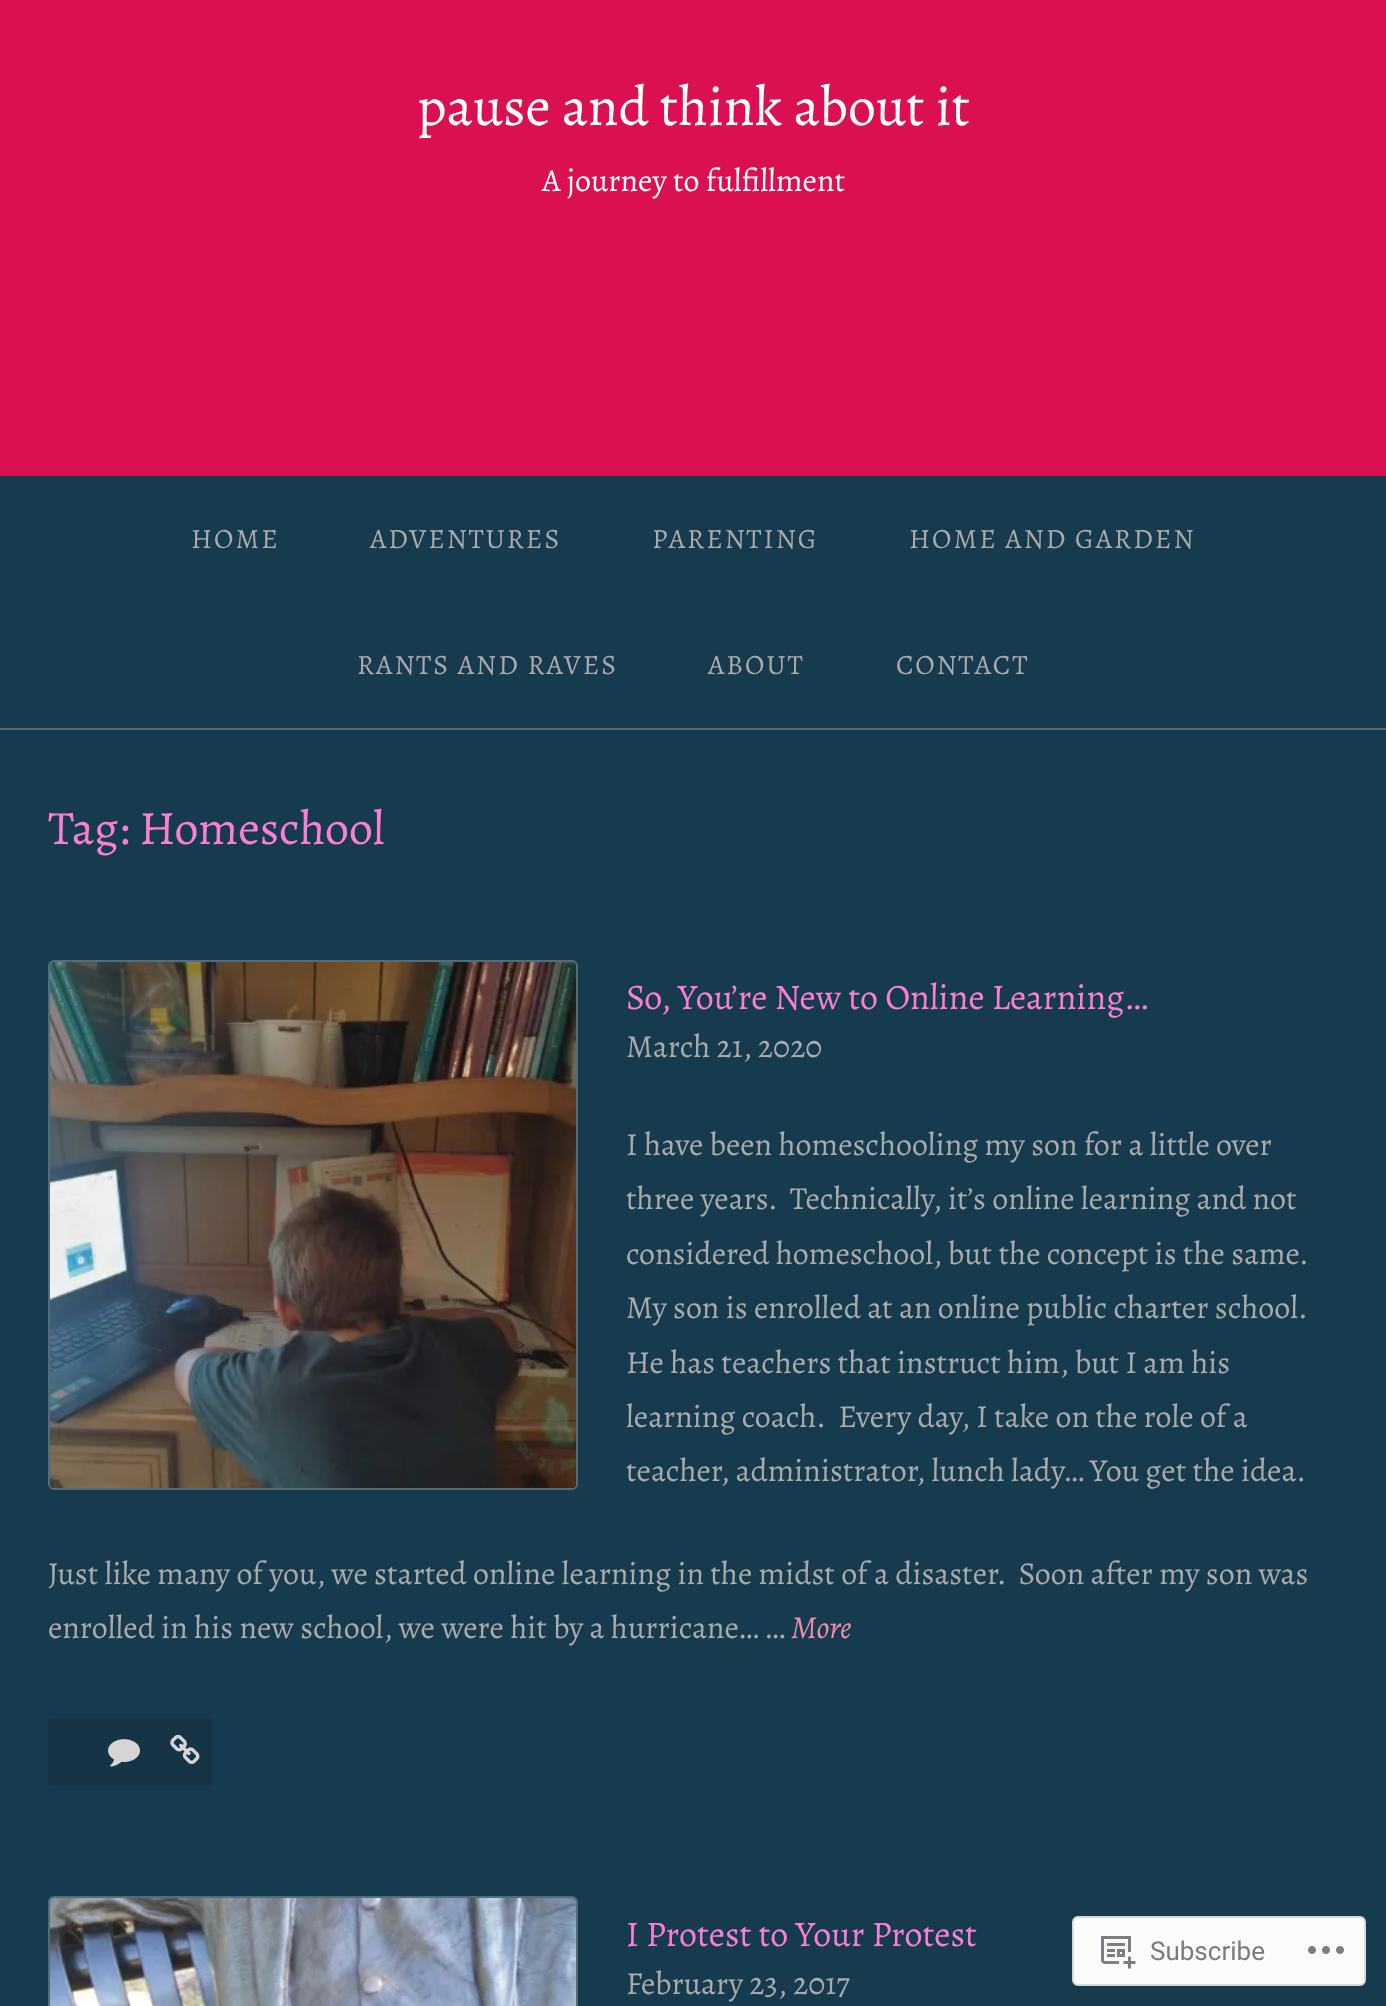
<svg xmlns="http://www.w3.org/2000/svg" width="1386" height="2006">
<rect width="100%" height="100%" fill="#173b4e"/>
<rect width="1386" height="476" fill="#da1050"/>
<text x="417" y="125" style="font-family:Alegreya;font-size:56px;fill:#fff">pause and think about it</text>
<text x="542" y="191" style="font-family:Alegreya;font-size:32px;fill:#fff">A journey to fulfillment</text>
<rect y="728" width="1386" height="2" fill="#526c79"/>
<text x="191" y="548" style="font-family:Alegreya;font-size:28px;letter-spacing:2px;fill:#aaa">HOME</text>
<text x="370" y="548" style="font-family:Alegreya;font-size:28px;letter-spacing:2px;fill:#aaa">ADVENTURES</text>
<text x="652" y="548" style="font-family:Alegreya;font-size:28px;letter-spacing:2px;fill:#aaa">PARENTING</text>
<text x="909" y="548" style="font-family:Alegreya;font-size:28px;letter-spacing:2px;fill:#aaa">HOME AND GARDEN</text>
<text x="357" y="674" style="font-family:Alegreya;font-size:28px;letter-spacing:2px;fill:#aaa">RANTS AND RAVES</text>
<text x="708" y="674" style="font-family:Alegreya;font-size:28px;letter-spacing:2px;fill:#aaa">ABOUT</text>
<text x="896" y="674" style="font-family:Alegreya;font-size:28px;letter-spacing:2px;fill:#aaa">CONTACT</text>
<text x="48" y="844" style="font-family:Alegreya;font-size:48px;fill:#fa7fd3">Tag: Homeschool</text>
<rect x="49" y="961" width="528" height="528" rx="5" fill="none" stroke="#526c79" stroke-width="2"/>
<image x="50" y="962" width="526" height="526" href="media/1.png"/>
<text x="626" y="1009" style="font-family:Alegreya;font-size:36px;fill:#fa7fd3">So, You’re New to Online Learning…</text>
<text x="626" y="1057" style="font-family:Alegreya;font-size:32px;fill:#aaa">March 21, 2020</text>
<text x="626" y="1155" style="font-family:Alegreya;font-size:32px;fill:#aaa">I have been homeschooling my son for a little over</text>
<text x="626" y="1209" style="font-family:Alegreya;font-size:32px;fill:#aaa" xml:space="preserve">three years.  Technically, it’s online learning and not</text>
<text x="626" y="1264" style="font-family:Alegreya;font-size:32px;fill:#aaa">considered homeschool, but the concept is the same.</text>
<text x="626" y="1318" style="font-family:Alegreya;font-size:32px;fill:#aaa">My son is enrolled at an online public charter school.</text>
<text x="626" y="1373" style="font-family:Alegreya;font-size:32px;fill:#aaa">He has teachers that instruct him, but I am his</text>
<text x="626" y="1427" style="font-family:Alegreya;font-size:32px;fill:#aaa" xml:space="preserve">learning coach.  Every day, I take on the role of a</text>
<text x="626" y="1481" style="font-family:Alegreya;font-size:32px;fill:#aaa">teacher, administrator, lunch lady… You get the idea.</text>
<text x="48" y="1584" style="font-family:Alegreya;font-size:32px;fill:#aaa" xml:space="preserve">Just like many of you, we started online learning in the midst of a disaster.  Soon after my son was</text>
<text x="48" y="1638" style="font-family:Alegreya;font-size:32px;fill:#aaa">enrolled in his new school, we were hit by a hurricane… …</text>
<text x="791" y="1638" style="font-family:Alegreya;font-size:32px;font-style:italic;fill:#f08dad">More</text>
<path d="M54 1718h98v68h-98c-3.5 0-6-2.5-6-6v-56c0-3.5 2.5-6 6-6z" fill="#153546"/>
<rect x="152" y="1718" width="60" height="68" fill="#153546"/>
<image x="108" y="1739" width="32" height="28" href="media/2.png"/>
<image x="170" y="1734" width="30" height="30" href="media/3.png"/>
<rect x="49" y="1897" width="528" height="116" rx="5" fill="none" stroke="#526c79" stroke-width="2"/>
<image x="50" y="1898" width="526" height="108" href="media/4.png"/>
<text x="626" y="1946" style="font-family:Alegreya;font-size:36px;fill:#fa7fd3">I Protest to Your Protest</text>
<text x="626" y="1994" style="font-family:Alegreya;font-size:32px;fill:#aaa">February 23, 2017</text>
<rect x="1073" y="1917" width="292" height="68" rx="5" fill="#fafbfb" stroke="#d8d9db" stroke-width="2"/>
<image x="1101" y="1936" width="35" height="33" href="media/5.png"/>
<text x="1150" y="1960" style="font-family:Roboto;font-size:26px;fill:#767b81">Subscribe</text>
<image x="1308" y="1946" width="36" height="8" href="media/6.png"/>
</svg>
